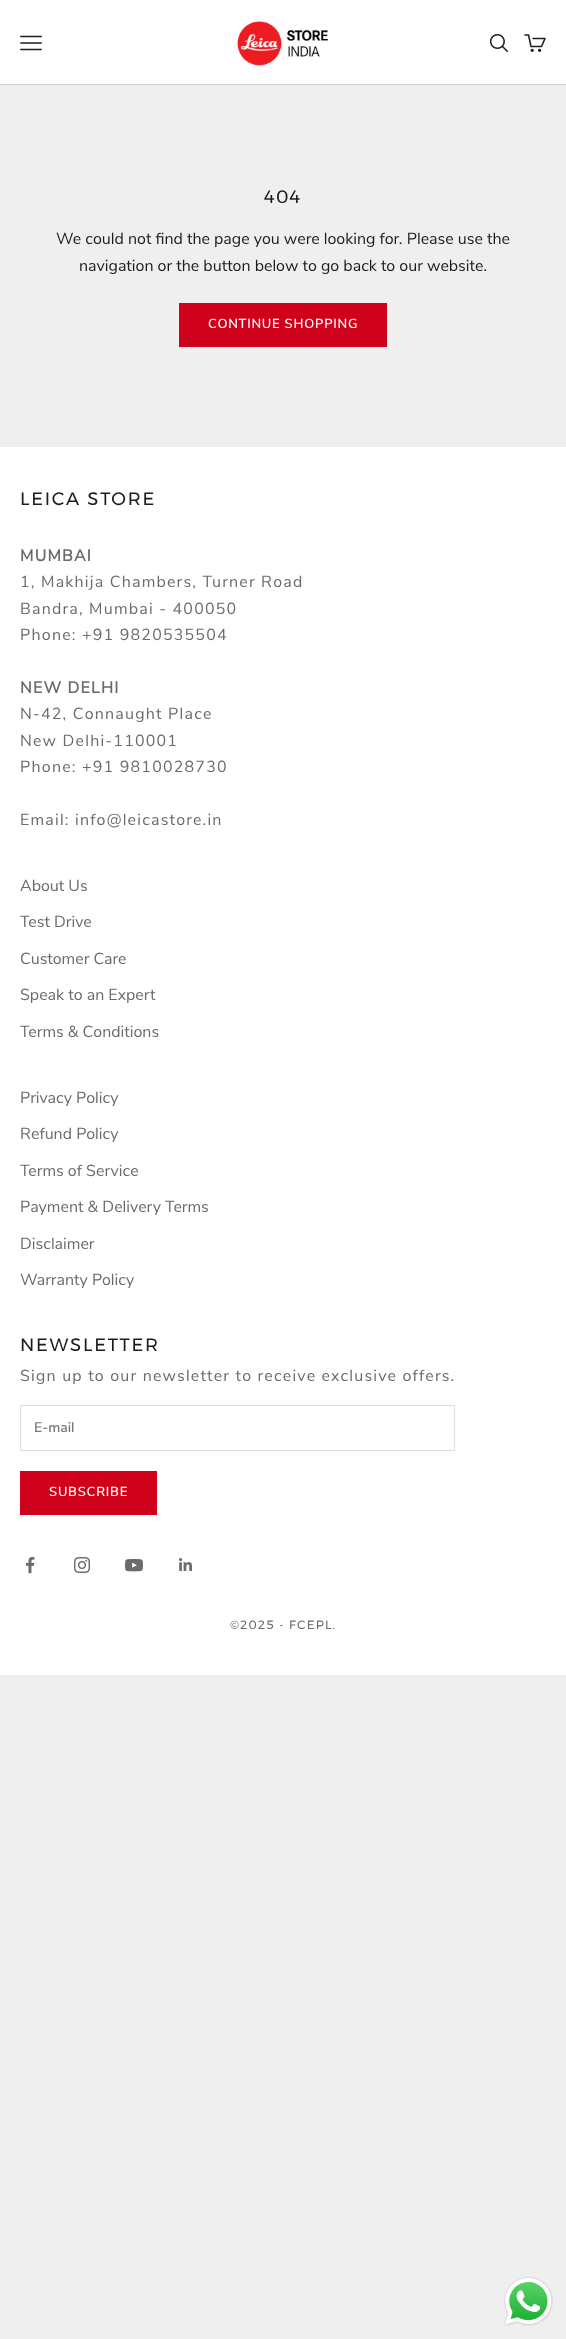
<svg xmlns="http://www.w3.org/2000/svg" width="566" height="2339">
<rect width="100%" height="100%" fill="#efefef"/>
<rect width="566" height="84" fill="#fff"/>
<rect y="84" width="566" height="1" fill="#cfcfcf"/>
<path d="M21 49.5h20m-20-6.5h20m-20-6.5h20" fill="none" stroke="#1c1c1c" stroke-width="1.5" stroke-linecap="square"/>
<image x="237" y="21" width="91" height="45" href="media/1.png"/>
<image x="489" y="34" width="19" height="18" href="media/2.png"/>
<path d="M533 38.5h12l-3.5 8h-10.5l-2.5-11.5h-3.5" fill="none" stroke="#1c1c1c" stroke-width="1.5" stroke-linecap="round" stroke-linejoin="round"/>
<circle cx="532.2" cy="50.3" r="0.9" fill="none" stroke="#1c1c1c" stroke-width="1.5"/>
<circle cx="539.6" cy="50.3" r="0.9" fill="none" stroke="#1c1c1c" stroke-width="1.5"/>
<text x="264" y="203" style="font-family:Montserrat;font-size:18px;letter-spacing:1px;fill:#1c1c1c">404</text>
<text x="56" y="244" style="font-family:Nunito Sans;font-size:16px;fill:#1c1c1c">We could not find the page you were looking for. Please use the</text>
<text x="79" y="271" style="font-family:Nunito Sans;font-size:16px;fill:#1c1c1c">navigation or the button below to go back to our website.</text>
<rect x="179.5" y="303.5" width="207" height="43" fill="#d0021b" stroke="#d0021b"/>
<text x="208" y="328" style="font-family:Nunito Sans;font-size:13px;font-weight:600;letter-spacing:0.75px;fill:#fff">CONTINUE SHOPPING</text>
<rect y="447" width="566" height="1228" fill="#fff"/>
<text x="20" y="505" style="font-family:Montserrat;font-size:18px;letter-spacing:1.75px;fill:#1c1c1c">LEICA STORE</text>
<text x="20" y="561" style="font-family:Nunito Sans;font-size:16px;font-weight:bold;letter-spacing:1.2px;fill:#6b6b6b">MUMBAI</text>
<text x="20" y="587" style="font-family:Nunito Sans;font-size:16px;letter-spacing:1.2px;fill:#6b6b6b">1, Makhija Chambers, Turner Road</text>
<text x="20" y="614" style="font-family:Nunito Sans;font-size:16px;letter-spacing:1.2px;fill:#6b6b6b">Bandra, Mumbai - 400050</text>
<text x="20" y="640" style="font-family:Nunito Sans;font-size:16px;letter-spacing:1.2px;fill:#6b6b6b">Phone: +91 9820535504</text>
<text x="20" y="693" style="font-family:Nunito Sans;font-size:16px;font-weight:bold;letter-spacing:1.2px;fill:#6b6b6b">NEW DELHI</text>
<text x="20" y="719" style="font-family:Nunito Sans;font-size:16px;letter-spacing:1.2px;fill:#6b6b6b">N-42, Connaught Place</text>
<text x="20" y="746" style="font-family:Nunito Sans;font-size:16px;letter-spacing:1.2px;fill:#6b6b6b">New Delhi-110001</text>
<text x="20" y="772" style="font-family:Nunito Sans;font-size:16px;letter-spacing:1.2px;fill:#6b6b6b">Phone: +91 9810028730</text>
<text x="20" y="825" style="font-family:Nunito Sans;font-size:16px;letter-spacing:1.2px;fill:#6b6b6b">Email: info@leicastore.in</text>
<text x="20" y="891" style="font-family:Nunito Sans;font-size:16px;fill:#6b6b6b">About Us</text>
<text x="20" y="927" style="font-family:Nunito Sans;font-size:16px;fill:#6b6b6b">Test Drive</text>
<text x="20" y="964" style="font-family:Nunito Sans;font-size:16px;fill:#6b6b6b">Customer Care</text>
<text x="20" y="1000" style="font-family:Nunito Sans;font-size:16px;fill:#6b6b6b">Speak to an Expert</text>
<text x="20" y="1037" style="font-family:Nunito Sans;font-size:16px;fill:#6b6b6b">Terms &amp; Conditions</text>
<text x="20" y="1103" style="font-family:Nunito Sans;font-size:16px;fill:#6b6b6b">Privacy Policy</text>
<text x="20" y="1139" style="font-family:Nunito Sans;font-size:16px;fill:#6b6b6b">Refund Policy</text>
<text x="20" y="1176" style="font-family:Nunito Sans;font-size:16px;fill:#6b6b6b">Terms of Service</text>
<text x="20" y="1212" style="font-family:Nunito Sans;font-size:16px;fill:#6b6b6b">Payment &amp; Delivery Terms</text>
<text x="20" y="1249" style="font-family:Nunito Sans;font-size:16px;fill:#6b6b6b">Disclaimer</text>
<text x="20" y="1285" style="font-family:Nunito Sans;font-size:16px;fill:#6b6b6b">Warranty Policy</text>
<text x="20" y="1351" style="font-family:Montserrat;font-size:18px;letter-spacing:1.75px;fill:#1c1c1c">NEWSLETTER</text>
<text x="20" y="1381" style="font-family:Nunito Sans;font-size:16px;letter-spacing:1.2px;fill:#6b6b6b">Sign up to our newsletter to receive exclusive offers.</text>
<rect x="20.5" y="1405.5" width="434" height="45" fill="none" stroke="#ddd"/>
<text x="34" y="1432" style="font-family:Nunito Sans;font-size:14px;font-weight:600;fill:#777">E-mail</text>
<rect x="20.5" y="1471.5" width="136" height="43" fill="#d0021b" stroke="#d0021b"/>
<text x="49" y="1496" style="font-family:Nunito Sans;font-size:13px;font-weight:600;letter-spacing:0.75px;fill:#fff">SUBSCRIBE</text>
<image x="26" y="1557" width="9" height="17" href="media/3.png"/>
<image x="74" y="1557" width="16" height="16" href="media/4.png"/>
<image x="125" y="1559" width="18" height="13" href="media/5.png"/>
<image x="179" y="1558" width="13" height="13" href="media/6.png"/>
<text x="230" y="1629" style="font-family:Montserrat;font-size:12px;letter-spacing:1.2px;fill:#6b6b6b">©2025 - FCEPL.</text>
<image x="504" y="2276" width="49" height="50" href="media/7.png"/>
</svg>
